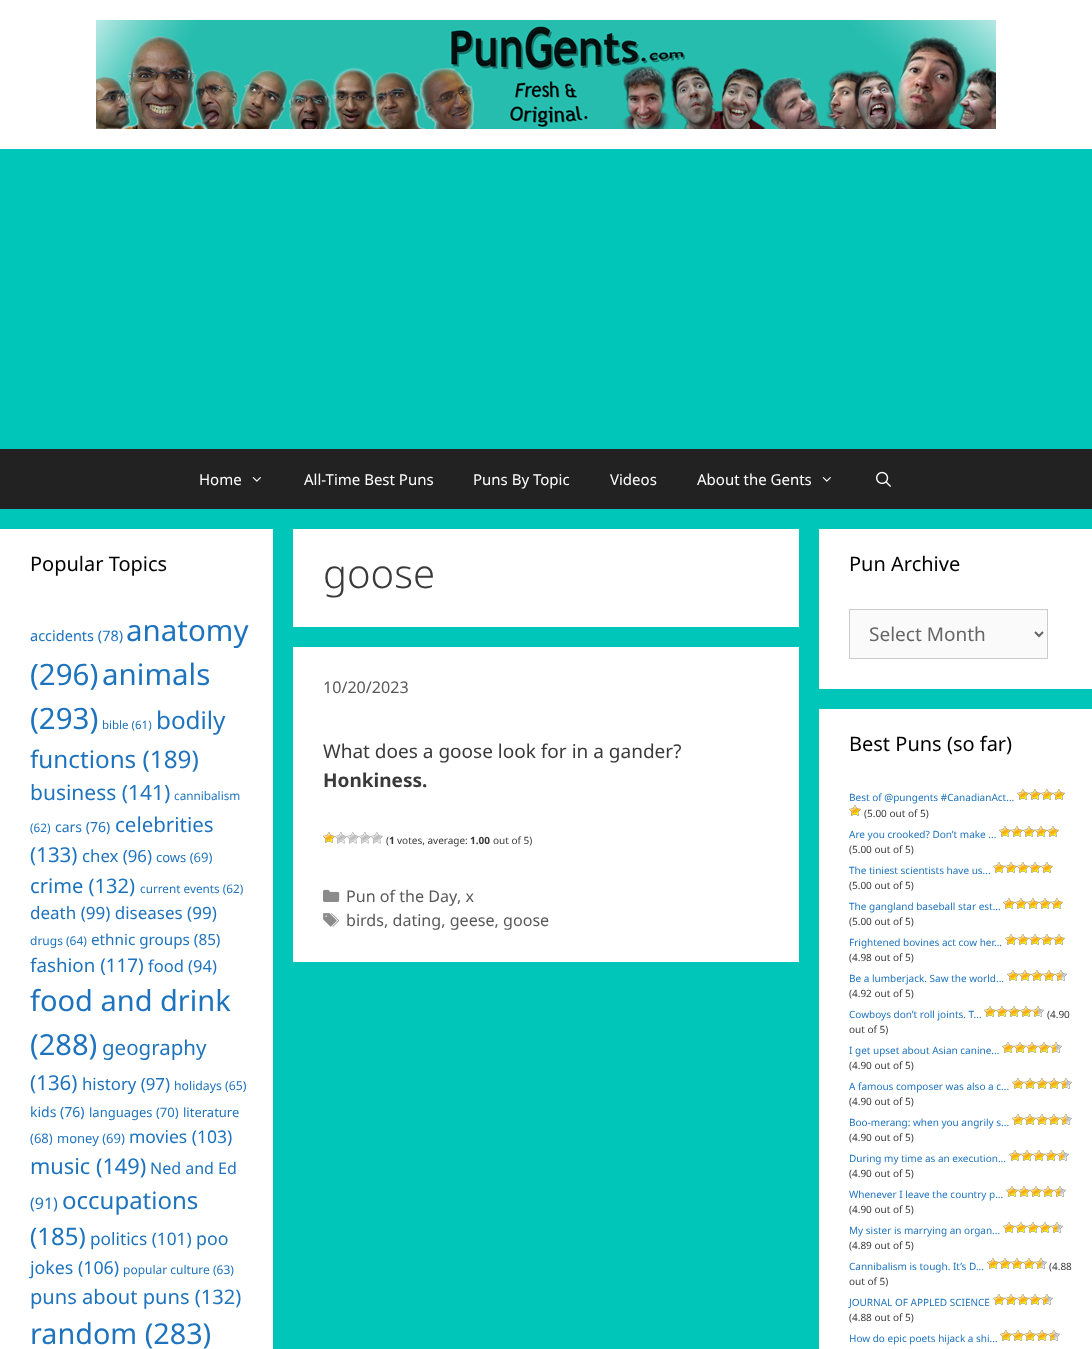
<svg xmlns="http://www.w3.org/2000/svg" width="1092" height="1349">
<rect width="100%" height="100%" fill="#00c6b9"/>
<rect width="1092" height="149" fill="#fff"/>
<image x="96" y="20" width="900" height="109" href="media/1.png"/>
<rect y="449" width="1092" height="60" fill="#222"/>
<text x="199" y="485" style="font-family:Noto Sans;font-size:15px;fill:#fff">Home</text>
<image x="252" y="477" width="9" height="5" href="media/2.png"/>
<text x="304" y="485" style="font-family:Noto Sans;font-size:15px;fill:#fff">All-Time Best Puns</text>
<text x="473" y="485" style="font-family:Noto Sans;font-size:15px;fill:#fff">Puns By Topic</text>
<text x="610" y="485" style="font-family:Noto Sans;font-size:15px;fill:#fff">Videos</text>
<text x="697" y="485" style="font-family:Noto Sans;font-size:15px;fill:#fff">About the Gents</text>
<image x="822" y="477" width="9" height="5" href="media/2.png"/>
<image x="876" y="471" width="15" height="16" href="media/3.png"/>
<rect y="529" width="273" height="820" fill="#fff"/>
<text x="30" y="571" style="font-family:Noto Sans;font-size:20px;fill:#000">Popular Topics</text>
<text x="30" y="641" style="font-family:Noto Sans;font-size:14.5px;fill:#1e73be">accidents (78)</text>
<text x="126" y="641" style="font-family:Noto Sans;font-size:29.5px;fill:#1e73be">anatomy</text>
<text x="30" y="685" style="font-family:Noto Sans;font-size:29.5px;fill:#1e73be">(296)</text>
<text x="102" y="685" style="font-family:Noto Sans;font-size:29.5px;fill:#1e73be">animals</text>
<text x="30" y="729" style="font-family:Noto Sans;font-size:29.5px;fill:#1e73be">(293)</text>
<text x="102" y="729" style="font-family:Noto Sans;font-size:11.5px;fill:#1e73be">bible (61)</text>
<text x="156" y="729" style="font-family:Noto Sans;font-size:24.25px;fill:#1e73be">bodily</text>
<text x="30" y="768" style="font-family:Noto Sans;font-size:24.25px;fill:#1e73be">functions (189)</text>
<text x="30" y="800" style="font-family:Noto Sans;font-size:21px;fill:#1e73be">business (141)</text>
<text x="174" y="800" style="font-family:Noto Sans;font-size:11.75px;fill:#1e73be">cannibalism</text>
<text x="30" y="832" style="font-family:Noto Sans;font-size:11.75px;fill:#1e73be">(62)</text>
<text x="55" y="832" style="font-family:Noto Sans;font-size:14px;fill:#1e73be">cars (76)</text>
<text x="115" y="832" style="font-family:Noto Sans;font-size:20.5px;fill:#1e73be">celebrities</text>
<text x="30" y="862" style="font-family:Noto Sans;font-size:20.5px;fill:#1e73be">(133)</text>
<text x="82" y="862" style="font-family:Noto Sans;font-size:16.75px;fill:#1e73be">chex (96)</text>
<text x="156" y="862" style="font-family:Noto Sans;font-size:13px;fill:#1e73be">cows (69)</text>
<text x="30" y="893" style="font-family:Noto Sans;font-size:20.1px;fill:#1e73be">crime (132)</text>
<text x="140" y="893" style="font-family:Noto Sans;font-size:11.75px;fill:#1e73be">current events (62)</text>
<text x="30" y="919" style="font-family:Noto Sans;font-size:17px;fill:#1e73be">death (99) diseases (99)</text>
<text x="30" y="945" style="font-family:Noto Sans;font-size:12px;fill:#1e73be">drugs (64)</text>
<text x="91" y="945" style="font-family:Noto Sans;font-size:15.25px;fill:#1e73be">ethnic groups (85)</text>
<text x="30" y="972" style="font-family:Noto Sans;font-size:18.75px;fill:#1e73be">fashion (117)</text>
<text x="148" y="972" style="font-family:Noto Sans;font-size:16.5px;fill:#1e73be">food (94)</text>
<text x="30" y="1011" style="font-family:Noto Sans;font-size:29px;fill:#1e73be">food and drink</text>
<text x="30" y="1055" style="font-family:Noto Sans;font-size:29px;fill:#1e73be">(288)</text>
<text x="102" y="1055" style="font-family:Noto Sans;font-size:20.5px;fill:#1e73be">geography</text>
<text x="30" y="1090" style="font-family:Noto Sans;font-size:20.5px;fill:#1e73be">(136)</text>
<text x="82" y="1090" style="font-family:Noto Sans;font-size:16.75px;fill:#1e73be">history (97)</text>
<text x="174" y="1090" style="font-family:Noto Sans;font-size:12.25px;fill:#1e73be">holidays (65)</text>
<text x="30" y="1117" style="font-family:Noto Sans;font-size:14px;fill:#1e73be">kids (76)</text>
<text x="89" y="1117" style="font-family:Noto Sans;font-size:13px;fill:#1e73be">languages (70)</text>
<text x="183" y="1117" style="font-family:Noto Sans;font-size:13px;fill:#1e73be">literature</text>
<text x="30" y="1143" style="font-family:Noto Sans;font-size:13px;fill:#1e73be">(68)</text>
<text x="57" y="1143" style="font-family:Noto Sans;font-size:13px;fill:#1e73be">money (69)</text>
<text x="129" y="1143" style="font-family:Noto Sans;font-size:17.5px;fill:#1e73be">movies (103)</text>
<text x="30" y="1174" style="font-family:Noto Sans;font-size:21.75px;fill:#1e73be">music (149)</text>
<text x="150" y="1174" style="font-family:Noto Sans;font-size:16px;fill:#1e73be">Ned and Ed</text>
<text x="30" y="1209" style="font-family:Noto Sans;font-size:16px;fill:#1e73be">(91)</text>
<text x="62" y="1209" style="font-family:Noto Sans;font-size:24px;fill:#1e73be">occupations</text>
<text x="30" y="1245" style="font-family:Noto Sans;font-size:24px;fill:#1e73be">(185)</text>
<text x="90" y="1245" style="font-family:Noto Sans;font-size:17.25px;fill:#1e73be">politics (101)</text>
<text x="196" y="1245" style="font-family:Noto Sans;font-size:17.75px;fill:#1e73be">poo</text>
<text x="30" y="1274" style="font-family:Noto Sans;font-size:17.75px;fill:#1e73be">jokes (106)</text>
<text x="123" y="1274" style="font-family:Noto Sans;font-size:12px;fill:#1e73be">popular culture (63)</text>
<text x="30" y="1304" style="font-family:Noto Sans;font-size:20.1px;fill:#1e73be">puns about puns (132)</text>
<text x="30" y="1344" style="font-family:Noto Sans;font-size:28.75px;fill:#1e73be">random (283)</text>
<rect x="293" y="529" width="506" height="98" fill="#fff"/>
<text x="323" y="588" style="font-family:Noto Sans;font-size:40px;font-weight:300;fill:#3a3a3a">goose</text>
<rect x="293" y="647" width="506" height="315" fill="#fff"/>
<text x="323" y="693" style="font-family:Noto Sans;font-size:16.1px;fill:#595959">10/20/2023</text>
<text x="323" y="758" style="font-family:Noto Sans;font-size:19px;fill:#3a3a3a">What does a goose look for in a gander?</text>
<text x="323" y="787" style="font-family:Noto Sans;font-size:19px;font-weight:bold;fill:#3a3a3a">Honkiness.</text>
<image x="323" y="832" width="12" height="11" href="media/4.png"/>
<image x="335" y="832" width="12" height="12" href="media/5.png"/>
<image x="347" y="832" width="12" height="12" href="media/5.png"/>
<image x="359" y="832" width="12" height="12" href="media/5.png"/>
<image x="371" y="832" width="12" height="12" href="media/5.png"/>
<text x="386" y="844" style="font-family:Noto Sans;font-size:10px;fill:#3a3a3a">(</text>
<text x="389" y="844" style="font-family:Noto Sans;font-size:10px;font-weight:bold;fill:#3a3a3a">1</text>
<text x="397" y="844" style="font-family:Noto Sans;font-size:10px;fill:#3a3a3a">votes, average:</text>
<text x="470" y="844" style="font-family:Noto Sans;font-size:10px;font-weight:bold;fill:#3a3a3a">1.00</text>
<text x="493" y="844" style="font-family:Noto Sans;font-size:10px;fill:#3a3a3a">out of 5)</text>
<image x="323" y="889" width="17" height="13" href="media/6.png"/>
<text x="346" y="902" style="font-family:Noto Sans;font-size:16.1px;fill:#595959">Pun of the Day</text>
<text x="457" y="902" style="font-family:Noto Sans;font-size:16.1px;fill:#595959">, x</text>
<image x="323" y="913" width="16" height="14" href="media/7.png"/>
<text x="346" y="926" style="font-family:Noto Sans;font-size:16.1px;fill:#595959">birds, dating, geese, goose</text>
<rect x="819" y="529" width="273" height="160" fill="#fff"/>
<text x="849" y="571" style="font-family:Noto Sans;font-size:20px;fill:#000">Pun Archive</text>
<rect x="849.5" y="609.5" width="198" height="49" fill="#fafafa" stroke="#ccc"/>
<path d="M1035 632l4 4l4-4" fill="none" stroke="#666" stroke-width="2"/>
<text x="869" y="641" style="font-family:Noto Sans;font-size:19px;fill:#666">Select Month</text>
<rect x="819" y="709" width="273" height="640" fill="#fff"/>
<text x="849" y="751" style="font-family:Noto Sans;font-size:20px;fill:#000">Best Puns (so far)</text>
<text x="849" y="801" style="font-family:Noto Sans;font-size:10px;fill:#1e73be">Best of @pungents #CanadianAct...</text>
<image x="1017" y="789" width="12" height="11" href="media/4.png"/>
<image x="1029" y="789" width="12" height="11" href="media/4.png"/>
<image x="1041" y="789" width="12" height="11" href="media/4.png"/>
<image x="1053" y="789" width="12" height="11" href="media/4.png"/>
<image x="849" y="805" width="12" height="11" href="media/4.png"/>
<text x="864" y="817" style="font-family:Noto Sans;font-size:10px;fill:#3a3a3a">(5.00 out of 5)</text>
<text x="849" y="838" style="font-family:Noto Sans;font-size:10px;fill:#1e73be">Are you crooked? Don’t make ...</text>
<image x="999" y="826" width="12" height="11" href="media/4.png"/>
<image x="1011" y="826" width="12" height="11" href="media/4.png"/>
<image x="1023" y="826" width="12" height="11" href="media/4.png"/>
<image x="1035" y="826" width="12" height="11" href="media/4.png"/>
<image x="1047" y="826" width="12" height="11" href="media/4.png"/>
<text x="849" y="853" style="font-family:Noto Sans;font-size:10px;fill:#3a3a3a">(5.00 out of 5)</text>
<text x="849" y="874" style="font-family:Noto Sans;font-size:10px;fill:#1e73be">The tiniest scientists have us...</text>
<image x="993" y="862" width="12" height="11" href="media/4.png"/>
<image x="1005" y="862" width="12" height="11" href="media/4.png"/>
<image x="1017" y="862" width="12" height="11" href="media/4.png"/>
<image x="1029" y="862" width="12" height="11" href="media/4.png"/>
<image x="1041" y="862" width="12" height="11" href="media/4.png"/>
<text x="849" y="889" style="font-family:Noto Sans;font-size:10px;fill:#3a3a3a">(5.00 out of 5)</text>
<text x="849" y="910" style="font-family:Noto Sans;font-size:10px;fill:#1e73be">The gangland baseball star est...</text>
<image x="1003" y="898" width="12" height="11" href="media/4.png"/>
<image x="1015" y="898" width="12" height="11" href="media/4.png"/>
<image x="1027" y="898" width="12" height="11" href="media/4.png"/>
<image x="1039" y="898" width="12" height="11" href="media/4.png"/>
<image x="1051" y="898" width="12" height="11" href="media/4.png"/>
<text x="849" y="925" style="font-family:Noto Sans;font-size:10px;fill:#3a3a3a">(5.00 out of 5)</text>
<text x="849" y="946" style="font-family:Noto Sans;font-size:10px;fill:#1e73be">Frightened bovines act cow her...</text>
<image x="1005" y="934" width="12" height="11" href="media/4.png"/>
<image x="1017" y="934" width="12" height="11" href="media/4.png"/>
<image x="1029" y="934" width="12" height="11" href="media/4.png"/>
<image x="1041" y="934" width="12" height="11" href="media/4.png"/>
<image x="1053" y="934" width="12" height="11" href="media/4.png"/>
<text x="849" y="961" style="font-family:Noto Sans;font-size:10px;fill:#3a3a3a">(4.98 out of 5)</text>
<text x="849" y="982" style="font-family:Noto Sans;font-size:10px;fill:#1e73be">Be a lumberjack. Saw the world...</text>
<image x="1007" y="970" width="12" height="11" href="media/4.png"/>
<image x="1019" y="970" width="12" height="11" href="media/4.png"/>
<image x="1031" y="970" width="12" height="11" href="media/4.png"/>
<image x="1043" y="970" width="12" height="11" href="media/4.png"/>
<image x="1055" y="970" width="12" height="11" href="media/8.png"/>
<text x="849" y="997" style="font-family:Noto Sans;font-size:10px;fill:#3a3a3a">(4.92 out of 5)</text>
<text x="849" y="1018" style="font-family:Noto Sans;font-size:10px;fill:#1e73be">Cowboys don’t roll joints. T...</text>
<image x="984" y="1006" width="12" height="11" href="media/4.png"/>
<image x="996" y="1006" width="12" height="11" href="media/4.png"/>
<image x="1008" y="1006" width="12" height="11" href="media/4.png"/>
<image x="1020" y="1006" width="12" height="11" href="media/4.png"/>
<image x="1032" y="1006" width="12" height="11" href="media/8.png"/>
<text x="1047" y="1018" style="font-family:Noto Sans;font-size:10px;fill:#3a3a3a">(4.90</text>
<text x="849" y="1033" style="font-family:Noto Sans;font-size:10px;fill:#3a3a3a">out of 5)</text>
<text x="849" y="1054" style="font-family:Noto Sans;font-size:10px;fill:#1e73be">I get upset about Asian canine...</text>
<image x="1002" y="1042" width="12" height="11" href="media/4.png"/>
<image x="1014" y="1042" width="12" height="11" href="media/4.png"/>
<image x="1026" y="1042" width="12" height="11" href="media/4.png"/>
<image x="1038" y="1042" width="12" height="11" href="media/4.png"/>
<image x="1050" y="1042" width="12" height="11" href="media/8.png"/>
<text x="849" y="1069" style="font-family:Noto Sans;font-size:10px;fill:#3a3a3a">(4.90 out of 5)</text>
<text x="849" y="1090" style="font-family:Noto Sans;font-size:10px;fill:#1e73be">A famous composer was also a c...</text>
<image x="1012" y="1078" width="12" height="11" href="media/4.png"/>
<image x="1024" y="1078" width="12" height="11" href="media/4.png"/>
<image x="1036" y="1078" width="12" height="11" href="media/4.png"/>
<image x="1048" y="1078" width="12" height="11" href="media/4.png"/>
<image x="1060" y="1078" width="12" height="11" href="media/8.png"/>
<text x="849" y="1105" style="font-family:Noto Sans;font-size:10px;fill:#3a3a3a">(4.90 out of 5)</text>
<text x="849" y="1126" style="font-family:Noto Sans;font-size:10px;fill:#1e73be">Boo-merang: when you angrily s...</text>
<image x="1012" y="1114" width="12" height="11" href="media/4.png"/>
<image x="1024" y="1114" width="12" height="11" href="media/4.png"/>
<image x="1036" y="1114" width="12" height="11" href="media/4.png"/>
<image x="1048" y="1114" width="12" height="11" href="media/4.png"/>
<image x="1060" y="1114" width="12" height="11" href="media/8.png"/>
<text x="849" y="1141" style="font-family:Noto Sans;font-size:10px;fill:#3a3a3a">(4.90 out of 5)</text>
<text x="849" y="1162" style="font-family:Noto Sans;font-size:10px;fill:#1e73be">During my time as an execution...</text>
<image x="1009" y="1150" width="12" height="11" href="media/4.png"/>
<image x="1021" y="1150" width="12" height="11" href="media/4.png"/>
<image x="1033" y="1150" width="12" height="11" href="media/4.png"/>
<image x="1045" y="1150" width="12" height="11" href="media/4.png"/>
<image x="1057" y="1150" width="12" height="11" href="media/8.png"/>
<text x="849" y="1177" style="font-family:Noto Sans;font-size:10px;fill:#3a3a3a">(4.90 out of 5)</text>
<text x="849" y="1198" style="font-family:Noto Sans;font-size:10px;fill:#1e73be">Whenever I leave the country p...</text>
<image x="1006" y="1186" width="12" height="11" href="media/4.png"/>
<image x="1018" y="1186" width="12" height="11" href="media/4.png"/>
<image x="1030" y="1186" width="12" height="11" href="media/4.png"/>
<image x="1042" y="1186" width="12" height="11" href="media/4.png"/>
<image x="1054" y="1186" width="12" height="11" href="media/8.png"/>
<text x="849" y="1213" style="font-family:Noto Sans;font-size:10px;fill:#3a3a3a">(4.90 out of 5)</text>
<text x="849" y="1234" style="font-family:Noto Sans;font-size:10px;fill:#1e73be">My sister is marrying an organ...</text>
<image x="1003" y="1222" width="12" height="11" href="media/4.png"/>
<image x="1015" y="1222" width="12" height="11" href="media/4.png"/>
<image x="1027" y="1222" width="12" height="11" href="media/4.png"/>
<image x="1039" y="1222" width="12" height="11" href="media/4.png"/>
<image x="1051" y="1222" width="12" height="11" href="media/8.png"/>
<text x="849" y="1249" style="font-family:Noto Sans;font-size:10px;fill:#3a3a3a">(4.89 out of 5)</text>
<text x="849" y="1270" style="font-family:Noto Sans;font-size:10px;fill:#1e73be">Cannibalism is tough. It’s D...</text>
<image x="987" y="1258" width="12" height="11" href="media/4.png"/>
<image x="999" y="1258" width="12" height="11" href="media/4.png"/>
<image x="1011" y="1258" width="12" height="11" href="media/4.png"/>
<image x="1023" y="1258" width="12" height="11" href="media/4.png"/>
<image x="1035" y="1258" width="12" height="11" href="media/8.png"/>
<text x="1049" y="1270" style="font-family:Noto Sans;font-size:10px;fill:#3a3a3a">(4.88</text>
<text x="849" y="1285" style="font-family:Noto Sans;font-size:10px;fill:#3a3a3a">out of 5)</text>
<text x="849" y="1306" style="font-family:Noto Sans;font-size:10px;fill:#1e73be">JOURNAL OF APPLED SCIENCE</text>
<image x="993" y="1294" width="12" height="11" href="media/4.png"/>
<image x="1005" y="1294" width="12" height="11" href="media/4.png"/>
<image x="1017" y="1294" width="12" height="11" href="media/4.png"/>
<image x="1029" y="1294" width="12" height="11" href="media/4.png"/>
<image x="1041" y="1294" width="12" height="11" href="media/8.png"/>
<text x="849" y="1321" style="font-family:Noto Sans;font-size:10px;fill:#3a3a3a">(4.88 out of 5)</text>
<text x="849" y="1342" style="font-family:Noto Sans;font-size:10px;fill:#1e73be">How do epic poets hijack a shi...</text>
<image x="1000" y="1330" width="12" height="11" href="media/4.png"/>
<image x="1012" y="1330" width="12" height="11" href="media/4.png"/>
<image x="1024" y="1330" width="12" height="11" href="media/4.png"/>
<image x="1036" y="1330" width="12" height="11" href="media/4.png"/>
<image x="1048" y="1330" width="12" height="11" href="media/8.png"/>
</svg>
